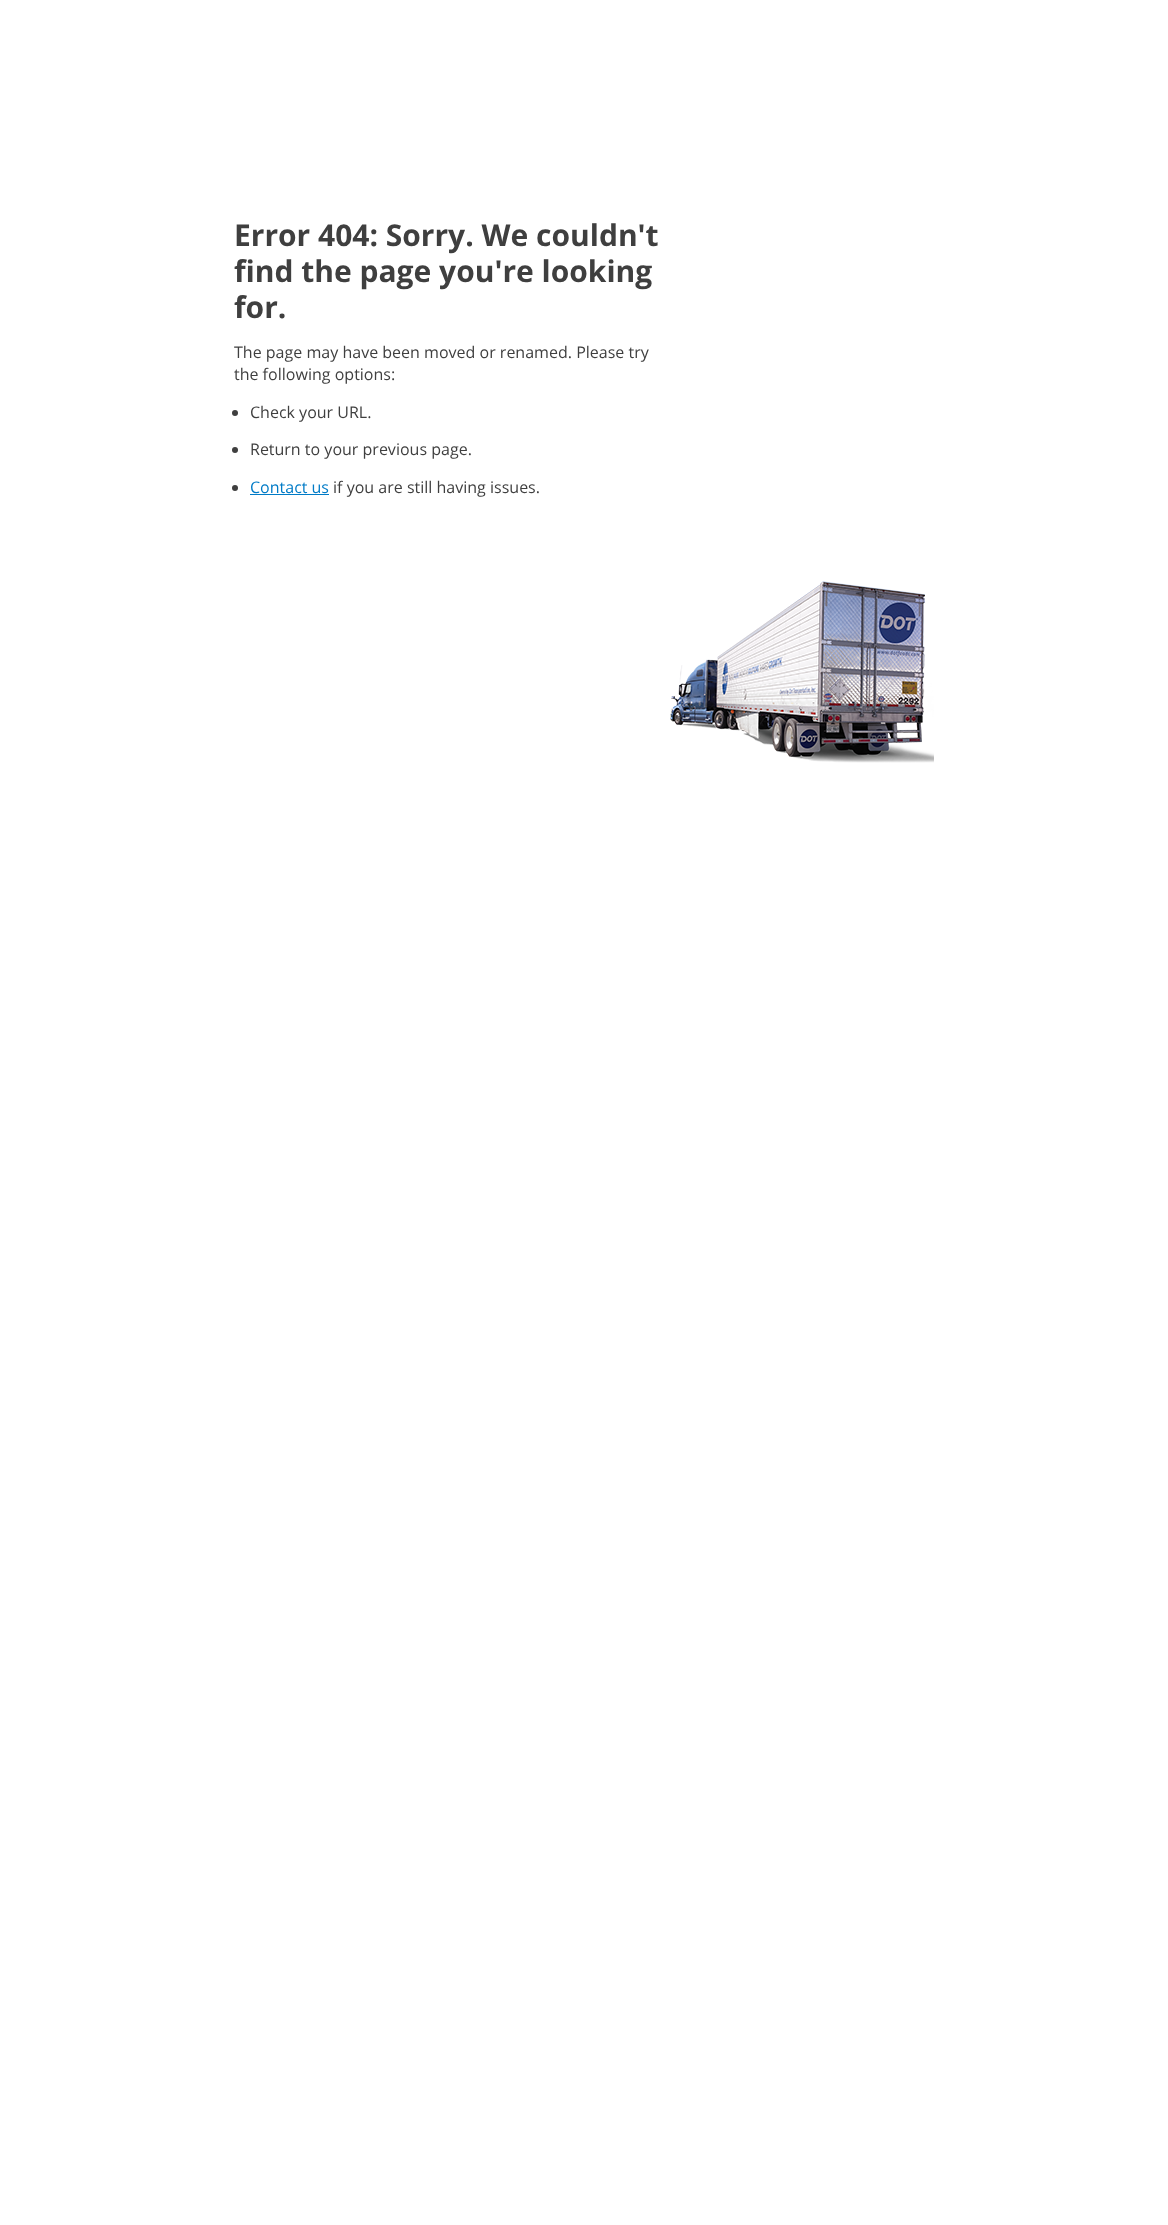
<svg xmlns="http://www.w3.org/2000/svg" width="1168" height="2225">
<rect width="100%" height="100%" fill="#fff"/>
<text x="234" y="246" style="font-family:Open Sans;font-size:30px;font-weight:bold;fill:#3f3f3f">Error 404: Sorry. We couldn't</text>
<text x="234" y="282" style="font-family:Open Sans;font-size:30px;font-weight:bold;fill:#3f3f3f">find the page you're looking</text>
<text x="234" y="318" style="font-family:Open Sans;font-size:30px;font-weight:bold;fill:#3f3f3f">for.</text>
<text x="234" y="358" style="font-family:Open Sans;font-size:16px;fill:#3f3f3f">The page may have been moved or renamed. Please try</text>
<text x="234" y="380" style="font-family:Open Sans;font-size:16px;fill:#3f3f3f">the following options:</text>
<circle cx="235" cy="413" r="3" fill="#3f3f3f"/>
<text x="250" y="418" style="font-family:Open Sans;font-size:16px;fill:#3f3f3f">Check your URL.</text>
<circle cx="235" cy="450" r="3" fill="#3f3f3f"/>
<text x="250" y="455" style="font-family:Open Sans;font-size:16px;fill:#3f3f3f">Return to your previous page.</text>
<circle cx="235" cy="488" r="3" fill="#3f3f3f"/>
<text x="250" y="493" style="font-family:Open Sans;font-size:16px;fill:#007bc7">Contact us</text>
<rect x="250" y="494" width="79" height="1" fill="#007bc7"/>
<text x="333" y="493" style="font-family:Open Sans;font-size:16px;fill:#3f3f3f">if you are still having issues.</text>
<image x="670" y="581" width="264" height="182" href="media/1.png"/>
</svg>
